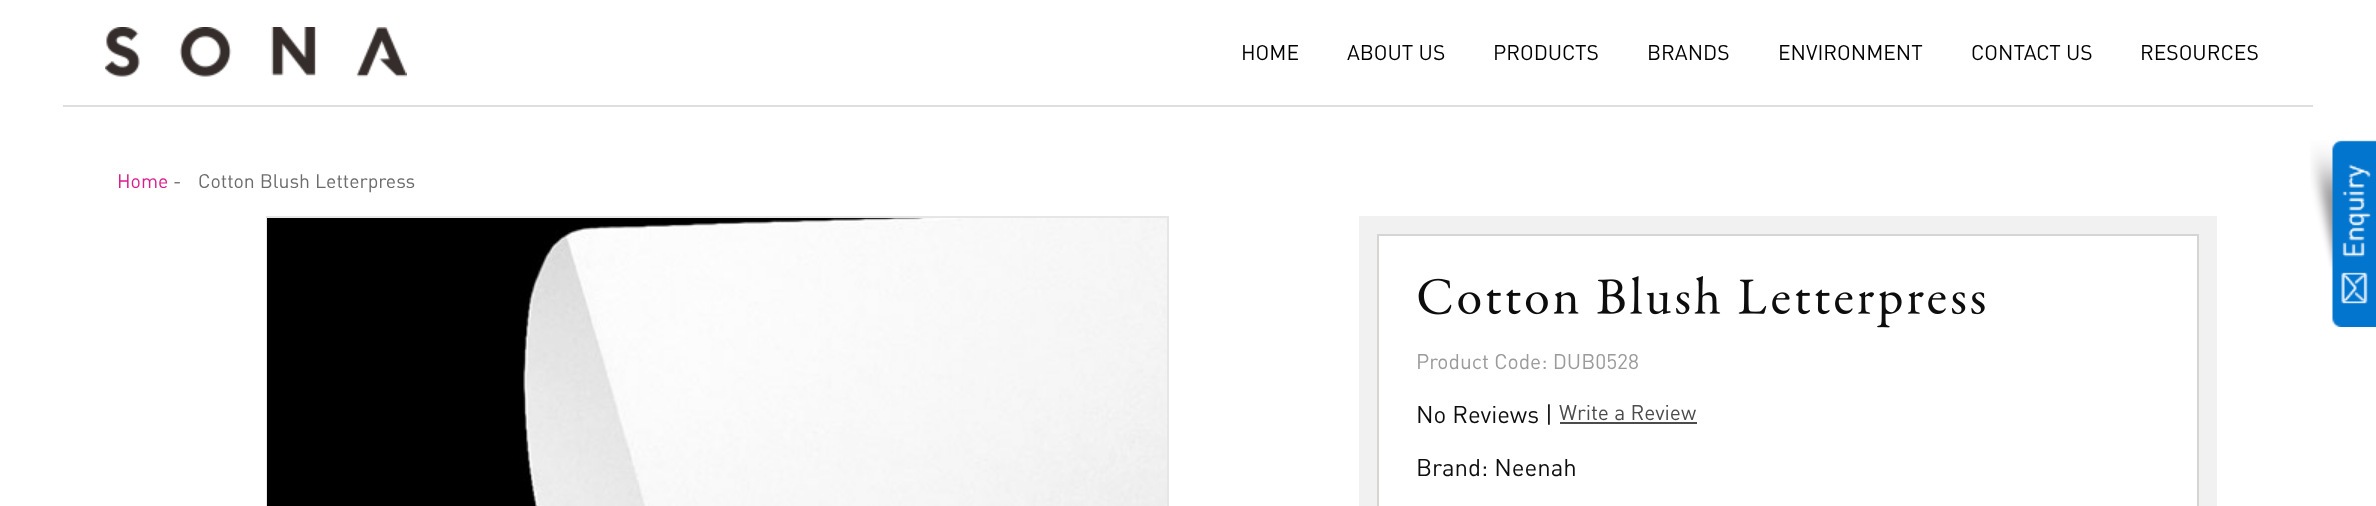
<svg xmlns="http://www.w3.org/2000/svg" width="2376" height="506">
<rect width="100%" height="100%" fill="#fff"/>
<rect x="63" y="105" width="2250" height="2" fill="#dedede"/>
<image x="105" y="27" width="302" height="50" href="media/1.png"/>
<text x="1241" y="60" style="font-family:DIN;font-size:21px;fill:#000">HOME</text>
<text x="1347" y="60" style="font-family:DIN;font-size:21px;fill:#000">ABOUT US</text>
<text x="1493" y="60" style="font-family:DIN;font-size:21px;fill:#000">PRODUCTS</text>
<text x="1647" y="60" style="font-family:DIN;font-size:21px;fill:#000">BRANDS</text>
<text x="1778" y="60" style="font-family:DIN;font-size:21px;fill:#000">ENVIRONMENT</text>
<text x="1971" y="60" style="font-family:DIN;font-size:21px;fill:#000">CONTACT US</text>
<text x="2140" y="60" style="font-family:DIN;font-size:21px;fill:#000">RESOURCES</text>
<text x="117" y="188" style="font-family:DIN;font-size:19.5px;fill:#da1d8c">Home</text>
<text x="173" y="188" style="font-family:DIN;font-size:19.5px;fill:#6c6c6c">-</text>
<text x="198" y="188" style="font-family:DIN;font-size:19.5px;fill:#6c6c6c">Cotton Blush Letterpress</text>
<rect x="267" y="217" width="901" height="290" fill="none" stroke="#e6e6e6" stroke-width="2"/>
<image x="267" y="218" width="900" height="288" href="media/2.png"/>
<rect x="1359" y="216" width="858" height="290" fill="#f1f1f1"/>
<rect x="1378" y="235" width="820" height="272" fill="#fff" stroke="#d7d4d4" stroke-width="2"/>
<image x="1418" y="276" width="567" height="52" href="media/3.png"/>
<text x="1416" y="369" style="font-family:DIN;font-size:21px;fill:#9b9b9b">Product Code: DUB0528</text>
<text x="1416" y="423" style="font-family:DIN;font-size:24px;fill:#0d0d0d">No Reviews |</text>
<text x="1559" y="420" style="font-family:DIN;font-size:21px;fill:#4c4c4c">Write a Review</text>
<rect x="1560" y="422" width="137" height="2" fill="#4c4c4c"/>
<text x="1416" y="476" style="font-family:DIN;font-size:24px;fill:#0d0d0d">Brand: Neenah</text>
<image x="2310" y="140" width="66" height="187" href="media/4.png"/>
</svg>
